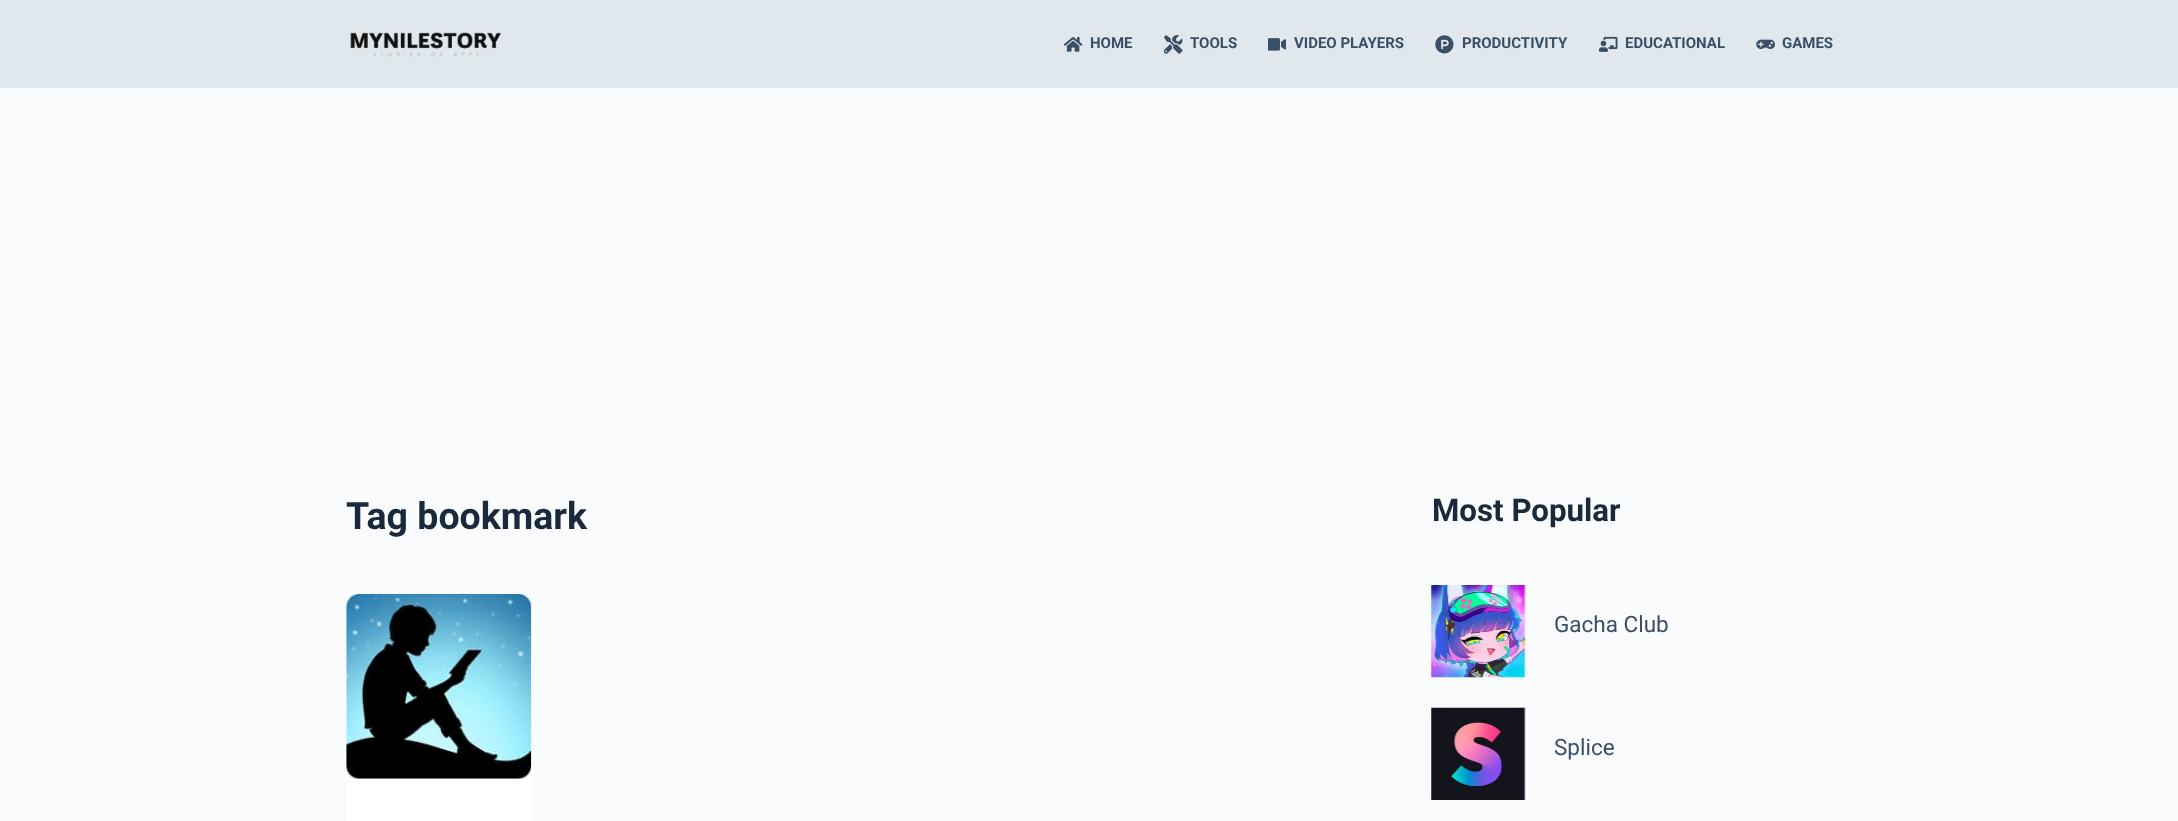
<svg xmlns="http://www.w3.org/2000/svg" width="2178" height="821">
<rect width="100%" height="100%" fill="#fafbfc"/>
<rect width="2178" height="88" fill="#e1e8ed"/>
<image x="350" y="32" width="151" height="25" href="media/1.png"/>
<image x="1064" y="37" width="19" height="15" href="media/2.png"/>
<text x="1090" y="48" style="font-family:Roboto;font-size:15px;font-weight:bold;fill:#3a4f66">HOME</text>
<image x="1164" y="35" width="19" height="19" href="media/3.png"/>
<text x="1190" y="48" style="font-family:Roboto;font-size:15px;font-weight:bold;fill:#3a4f66">TOOLS</text>
<image x="1268" y="38" width="18" height="13" href="media/4.png"/>
<text x="1294" y="48" style="font-family:Roboto;font-size:15px;font-weight:bold;fill:#3a4f66">VIDEO PLAYERS</text>
<image x="1435" y="35" width="19" height="19" href="media/5.png"/>
<text x="1462" y="48" style="font-family:Roboto;font-size:15px;font-weight:bold;fill:#3a4f66">PRODUCTIVITY</text>
<image x="1599" y="36" width="19" height="16" href="media/6.png"/>
<text x="1625" y="48" style="font-family:Roboto;font-size:15px;font-weight:bold;fill:#3a4f66">EDUCATIONAL</text>
<image x="1756" y="39" width="19" height="10" href="media/7.png"/>
<text x="1782" y="48" style="font-family:Roboto;font-size:15px;font-weight:bold;fill:#3a4f66">GAMES</text>
<text x="346" y="529" style="font-family:Roboto;font-size:37.5px;font-weight:bold;fill:#192a3d">Tag bookmark</text>
<rect x="346" y="594" width="185" height="227" fill="#fff"/>
<image x="346" y="593" width="186" height="186" href="media/8.png"/>
<text x="1432" y="521" style="font-family:Roboto;font-size:31.25px;font-weight:bold;fill:#192a3d">Most Popular</text>
<image x="1431" y="585" width="95" height="93" href="media/9.png"/>
<text x="1554" y="632" style="font-family:Roboto;font-size:22.5px;fill:#3a4f66">Gacha Club</text>
<image x="1431" y="707" width="95" height="93" href="media/10.png"/>
<text x="1554" y="755" style="font-family:Roboto;font-size:22.5px;fill:#3a4f66">Splice</text>
</svg>
